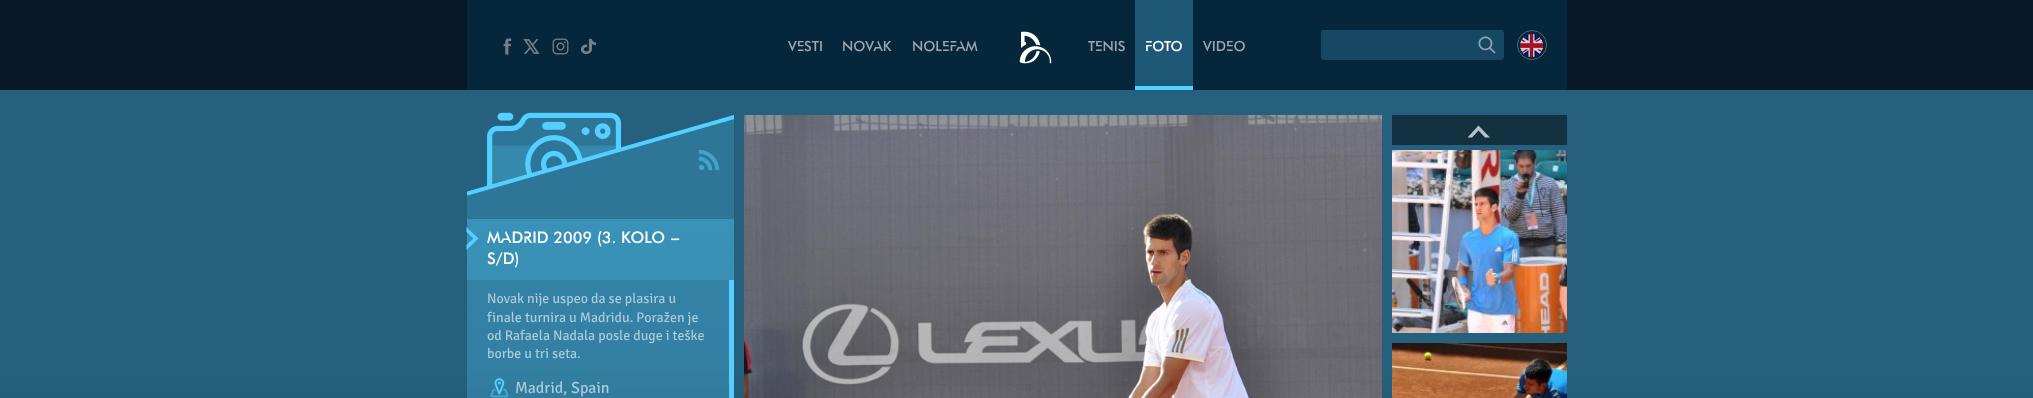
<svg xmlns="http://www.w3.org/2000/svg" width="2033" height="398">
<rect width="100%" height="100%" fill="#071829"/>
<rect x="467" width="1100" height="90" fill="#06263c"/>
<image x="503" y="38" width="9" height="17" href="media/1.png"/>
<image x="523" y="39" width="17" height="15" href="media/2.png"/>
<image x="552" y="38" width="17" height="17" href="media/3.png"/>
<image x="580" y="38" width="17" height="17" href="media/4.png"/>
<text x="788" y="51" style="font-family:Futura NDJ;font-size:14px;font-weight:500;fill:#9ba8b1">VESTI</text>
<text x="842" y="51" style="font-family:Futura NDJ;font-size:14px;font-weight:500;fill:#9ba8b1">NOVAK</text>
<text x="912" y="51" style="font-family:Futura NDJ;font-size:14px;font-weight:500;fill:#9ba8b1">NOLEFAM</text>
<image x="1019" y="31" width="33" height="33" href="media/5.png"/>
<text x="1088" y="51" style="font-family:Futura NDJ;font-size:14px;font-weight:500;fill:#9ba8b1">TENIS</text>
<rect x="1135" width="58" height="86" fill="#1d5977"/>
<rect x="1135" y="86" width="58" height="4" fill="#54cfff"/>
<text x="1145" y="51" style="font-family:Futura NDJ;font-size:14px;font-weight:500;fill:#fff">FOTO</text>
<text x="1203" y="51" style="font-family:Futura NDJ;font-size:14px;font-weight:500;fill:#9ba8b1">VIDEO</text>
<rect x="1321" y="30" width="183" height="30" rx="3" fill="#164863"/>
<image x="1478" y="36" width="18" height="18" href="media/6.png"/>
<circle cx="1532" cy="45" r="14.5" fill="none" stroke="#516777"/>
<image x="1520" y="34" width="23" height="23" href="media/7.png"/>
<image x="0" y="90" width="2033" height="308" href="media/8.png"/>
<image x="467" y="112" width="267" height="107" href="media/9.png"/>
<image x="698" y="149" width="22" height="22" href="media/10.png"/>
<rect x="467" y="219" width="267" height="61" fill="#54cfff4d"/>
<path d="M478.5 238.5l-12-11.5v5l7 6.5l-7 6.5v5z" fill="#54cfff"/>
<text x="487" y="243" style="font-family:Futura NDJ;font-size:16px;font-weight:500;fill:#fff">MADRID 2009 (3. KOLO –</text>
<text x="487" y="264" style="font-family:Futura NDJ;font-size:16px;font-weight:500;fill:#fff">S/D)</text>
<rect x="467" y="280" width="262" height="83" fill="#54cfff26"/>
<rect x="729" y="280" width="5" height="118" fill="#54cfff"/>
<text x="487" y="303" style="font-family:Signika Negative;font-size:14px;fill:#aecddb">Novak nije uspeo da se plasira u</text>
<text x="487" y="322" style="font-family:Signika Negative;font-size:14px;fill:#aecddb">finale turnira u Madridu. Poražen je</text>
<text x="487" y="340" style="font-family:Signika Negative;font-size:14px;fill:#aecddb">od Rafaela Nadala posle duge i teške</text>
<text x="487" y="358" style="font-family:Signika Negative;font-size:14px;fill:#aecddb">borbe u tri seta.</text>
<rect x="467" y="363" width="262" height="35" fill="#54cfff26"/>
<image x="490" y="378" width="19" height="20" href="media/11.png"/>
<text x="515" y="393" style="font-family:Signika Negative;font-size:16px;fill:#aecddb">Madrid</text>
<text x="563" y="393" style="font-family:Signika Negative;font-size:16px;fill:#aecddb">,</text>
<text x="571" y="393" style="font-family:Signika Negative;font-size:16px;fill:#aecddb">Spain</text>
<image x="744" y="115" width="638" height="283" href="media/12.png"/>
<rect x="1392" y="115" width="175" height="30" fill="#133140"/>
<path d="M1478.5 125.5l11.5 12h-5l-6.5-7l-6.5 7h-4.5z" fill="#b8c1c6"/>
<image x="1392" y="150" width="175" height="183" href="media/13.png"/>
<image x="1392" y="343" width="175" height="55" href="media/14.png"/>
</svg>
